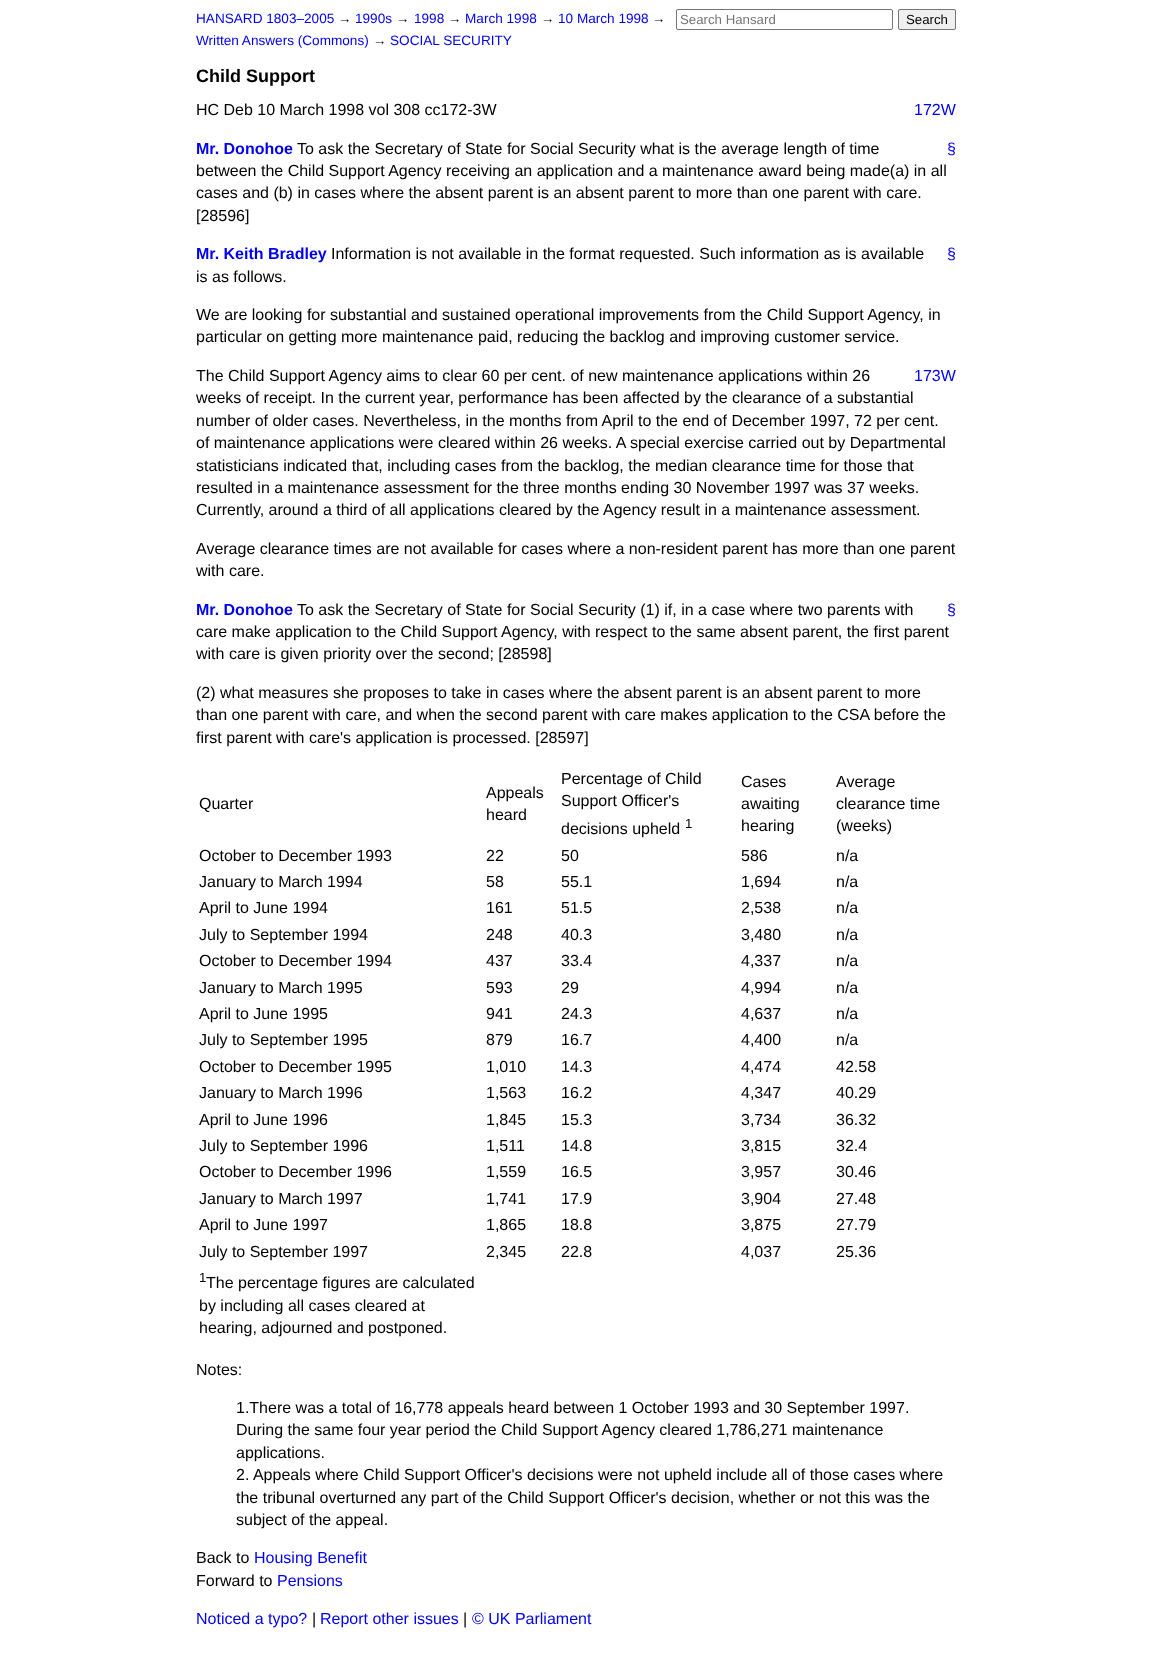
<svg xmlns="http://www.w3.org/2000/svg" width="1152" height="1658">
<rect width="100%" height="100%" fill="#fff"/>
<text x="196" y="23" style="font-family:Liberation Sans;font-size:13.6px;fill:#00e">HANSARD 1803–2005</text>
<text x="338" y="23" style="font-family:Liberation Sans;font-size:13.6px;fill:#000">→</text>
<text x="355" y="23" style="font-family:Liberation Sans;font-size:13.6px;fill:#00e">1990s</text>
<text x="396" y="23" style="font-family:Liberation Sans;font-size:13.6px;fill:#000">→</text>
<text x="414" y="23" style="font-family:Liberation Sans;font-size:13.6px;fill:#00e">1998</text>
<text x="448" y="23" style="font-family:Liberation Sans;font-size:13.6px;fill:#000">→</text>
<text x="465" y="23" style="font-family:Liberation Sans;font-size:13.6px;fill:#00e">March 1998</text>
<text x="541" y="23" style="font-family:Liberation Sans;font-size:13.6px;fill:#000">→</text>
<text x="558" y="23" style="font-family:Liberation Sans;font-size:13.6px;fill:#00e">10 March 1998</text>
<text x="652" y="23" style="font-family:Liberation Sans;font-size:13.6px;fill:#000">→</text>
<text x="196" y="45" style="font-family:Liberation Sans;font-size:13.6px;fill:#00e">Written Answers (Commons)</text>
<text x="373" y="45" style="font-family:Liberation Sans;font-size:13.6px;fill:#000">→</text>
<text x="390" y="45" style="font-family:Liberation Sans;font-size:13.6px;fill:#00e">SOCIAL SECURITY</text>
<rect x="676.5" y="9.5" width="216" height="20" rx="1.5" fill="none" stroke="#767676"/>
<text x="680" y="24" style="font-family:Liberation Sans;font-size:13.25px;fill:#757575">Search Hansard</text>
<rect x="898.5" y="9.5" width="57" height="20" rx="1.5" fill="#efefef" stroke="#767676"/>
<text x="906" y="24" style="font-family:Liberation Sans;font-size:13.25px;fill:#000">Search</text>
<text x="196" y="82" style="font-family:Liberation Sans;font-size:18px;font-weight:bold;fill:#000">Child Support</text>
<text x="196" y="115" style="font-family:Liberation Sans;font-size:16px;fill:#000">HC Deb 10 March 1998 vol 308 cc172-3W</text>
<text x="914" y="115" style="font-family:Liberation Sans;font-size:16px;fill:#00e">172W</text>
<text x="196" y="154" style="font-family:Liberation Sans;font-size:16px;font-weight:bold;fill:#00e">Mr. Donohoe</text>
<text x="297" y="154" style="font-family:Liberation Sans;font-size:16px;fill:#000">To ask the Secretary of State for Social Security what is the average length of time</text>
<text x="947" y="154" style="font-family:Liberation Sans;font-size:16px;fill:#00e">§</text>
<text x="196" y="176" style="font-family:Liberation Sans;font-size:16px;fill:#000">between the Child Support Agency receiving an application and a maintenance award being made(a) in all</text>
<text x="196" y="198" style="font-family:Liberation Sans;font-size:16px;fill:#000">cases and (b) in cases where the absent parent is an absent parent to more than one parent with care.</text>
<text x="196" y="221" style="font-family:Liberation Sans;font-size:16px;fill:#000">[28596]</text>
<text x="196" y="259" style="font-family:Liberation Sans;font-size:16px;font-weight:bold;fill:#00e">Mr. Keith Bradley</text>
<text x="331" y="259" style="font-family:Liberation Sans;font-size:16px;fill:#000">Information is not available in the format requested. Such information as is available</text>
<text x="947" y="259" style="font-family:Liberation Sans;font-size:16px;fill:#00e">§</text>
<text x="196" y="282" style="font-family:Liberation Sans;font-size:16px;fill:#000">is as follows.</text>
<text x="196" y="320" style="font-family:Liberation Sans;font-size:16px;fill:#000">We are looking for substantial and sustained operational improvements from the Child Support Agency, in</text>
<text x="196" y="342" style="font-family:Liberation Sans;font-size:16px;fill:#000">particular on getting more maintenance paid, reducing the backlog and improving customer service.</text>
<text x="196" y="381" style="font-family:Liberation Sans;font-size:16px;fill:#000">The Child Support Agency aims to clear 60 per cent. of new maintenance applications within 26</text>
<text x="196" y="403" style="font-family:Liberation Sans;font-size:16px;fill:#000">weeks of receipt. In the current year, performance has been affected by the clearance of a substantial</text>
<text x="196" y="426" style="font-family:Liberation Sans;font-size:16px;fill:#000">number of older cases. Nevertheless, in the months from April to the end of December 1997, 72 per cent.</text>
<text x="196" y="448" style="font-family:Liberation Sans;font-size:16px;fill:#000">of maintenance applications were cleared within 26 weeks. A special exercise carried out by Departmental</text>
<text x="196" y="471" style="font-family:Liberation Sans;font-size:16px;fill:#000">statisticians indicated that, including cases from the backlog, the median clearance time for those that</text>
<text x="196" y="493" style="font-family:Liberation Sans;font-size:16px;fill:#000">resulted in a maintenance assessment for the three months ending 30 November 1997 was 37 weeks.</text>
<text x="196" y="515" style="font-family:Liberation Sans;font-size:16px;fill:#000">Currently, around a third of all applications cleared by the Agency result in a maintenance assessment.</text>
<text x="914" y="381" style="font-family:Liberation Sans;font-size:16px;fill:#00e">173W</text>
<text x="196" y="554" style="font-family:Liberation Sans;font-size:16px;fill:#000">Average clearance times are not available for cases where a non-resident parent has more than one parent</text>
<text x="196" y="576" style="font-family:Liberation Sans;font-size:16px;fill:#000">with care.</text>
<text x="196" y="615" style="font-family:Liberation Sans;font-size:16px;font-weight:bold;fill:#00e">Mr. Donohoe</text>
<text x="297" y="615" style="font-family:Liberation Sans;font-size:16px;fill:#000">To ask the Secretary of State for Social Security (1) if, in a case where two parents with</text>
<text x="947" y="615" style="font-family:Liberation Sans;font-size:16px;fill:#00e">§</text>
<text x="196" y="637" style="font-family:Liberation Sans;font-size:16px;fill:#000">care make application to the Child Support Agency, with respect to the same absent parent, the first parent</text>
<text x="196" y="659" style="font-family:Liberation Sans;font-size:16px;fill:#000">with care is given priority over the second; [28598]</text>
<text x="196" y="698" style="font-family:Liberation Sans;font-size:16px;fill:#000">(2) what measures she proposes to take in cases where the absent parent is an absent parent to more</text>
<text x="196" y="720" style="font-family:Liberation Sans;font-size:16px;fill:#000">than one parent with care, and when the second parent with care makes application to the CSA before the</text>
<text x="196" y="743" style="font-family:Liberation Sans;font-size:16px;fill:#000">first parent with care's application is processed. [28597]</text>
<text x="199" y="809" style="font-family:Liberation Sans;font-size:16px;fill:#000">Quarter</text>
<text x="486" y="798" style="font-family:Liberation Sans;font-size:16px;fill:#000">Appeals</text>
<text x="486" y="820" style="font-family:Liberation Sans;font-size:16px;fill:#000">heard</text>
<text x="561" y="784" style="font-family:Liberation Sans;font-size:16px;fill:#000">Percentage of Child</text>
<text x="561" y="806" style="font-family:Liberation Sans;font-size:16px;fill:#000">Support Officer's</text>
<text x="561" y="834" style="font-family:Liberation Sans;font-size:16px;fill:#000">decisions upheld</text>
<text x="685" y="828" style="font-family:Liberation Sans;font-size:13.25px;fill:#000">1</text>
<text x="741" y="787" style="font-family:Liberation Sans;font-size:16px;fill:#000">Cases</text>
<text x="741" y="809" style="font-family:Liberation Sans;font-size:16px;fill:#000">awaiting</text>
<text x="741" y="831" style="font-family:Liberation Sans;font-size:16px;fill:#000">hearing</text>
<text x="836" y="787" style="font-family:Liberation Sans;font-size:16px;fill:#000">Average</text>
<text x="836" y="809" style="font-family:Liberation Sans;font-size:16px;fill:#000">clearance time</text>
<text x="836" y="831" style="font-family:Liberation Sans;font-size:16px;fill:#000">(weeks)</text>
<text x="199" y="861" style="font-family:Liberation Sans;font-size:16px;fill:#000">October to December 1993</text>
<text x="486" y="861" style="font-family:Liberation Sans;font-size:16px;fill:#000">22</text>
<text x="561" y="861" style="font-family:Liberation Sans;font-size:16px;fill:#000">50</text>
<text x="741" y="861" style="font-family:Liberation Sans;font-size:16px;fill:#000">586</text>
<text x="836" y="861" style="font-family:Liberation Sans;font-size:16px;fill:#000">n/a</text>
<text x="199" y="887" style="font-family:Liberation Sans;font-size:16px;fill:#000">January to March 1994</text>
<text x="486" y="887" style="font-family:Liberation Sans;font-size:16px;fill:#000">58</text>
<text x="561" y="887" style="font-family:Liberation Sans;font-size:16px;fill:#000">55.1</text>
<text x="741" y="887" style="font-family:Liberation Sans;font-size:16px;fill:#000">1,694</text>
<text x="836" y="887" style="font-family:Liberation Sans;font-size:16px;fill:#000">n/a</text>
<text x="199" y="913" style="font-family:Liberation Sans;font-size:16px;fill:#000">April to June 1994</text>
<text x="486" y="913" style="font-family:Liberation Sans;font-size:16px;fill:#000">161</text>
<text x="561" y="913" style="font-family:Liberation Sans;font-size:16px;fill:#000">51.5</text>
<text x="741" y="913" style="font-family:Liberation Sans;font-size:16px;fill:#000">2,538</text>
<text x="836" y="913" style="font-family:Liberation Sans;font-size:16px;fill:#000">n/a</text>
<text x="199" y="940" style="font-family:Liberation Sans;font-size:16px;fill:#000">July to September 1994</text>
<text x="486" y="940" style="font-family:Liberation Sans;font-size:16px;fill:#000">248</text>
<text x="561" y="940" style="font-family:Liberation Sans;font-size:16px;fill:#000">40.3</text>
<text x="741" y="940" style="font-family:Liberation Sans;font-size:16px;fill:#000">3,480</text>
<text x="836" y="940" style="font-family:Liberation Sans;font-size:16px;fill:#000">n/a</text>
<text x="199" y="966" style="font-family:Liberation Sans;font-size:16px;fill:#000">October to December 1994</text>
<text x="486" y="966" style="font-family:Liberation Sans;font-size:16px;fill:#000">437</text>
<text x="561" y="966" style="font-family:Liberation Sans;font-size:16px;fill:#000">33.4</text>
<text x="741" y="966" style="font-family:Liberation Sans;font-size:16px;fill:#000">4,337</text>
<text x="836" y="966" style="font-family:Liberation Sans;font-size:16px;fill:#000">n/a</text>
<text x="199" y="993" style="font-family:Liberation Sans;font-size:16px;fill:#000">January to March 1995</text>
<text x="486" y="993" style="font-family:Liberation Sans;font-size:16px;fill:#000">593</text>
<text x="561" y="993" style="font-family:Liberation Sans;font-size:16px;fill:#000">29</text>
<text x="741" y="993" style="font-family:Liberation Sans;font-size:16px;fill:#000">4,994</text>
<text x="836" y="993" style="font-family:Liberation Sans;font-size:16px;fill:#000">n/a</text>
<text x="199" y="1019" style="font-family:Liberation Sans;font-size:16px;fill:#000">April to June 1995</text>
<text x="486" y="1019" style="font-family:Liberation Sans;font-size:16px;fill:#000">941</text>
<text x="561" y="1019" style="font-family:Liberation Sans;font-size:16px;fill:#000">24.3</text>
<text x="741" y="1019" style="font-family:Liberation Sans;font-size:16px;fill:#000">4,637</text>
<text x="836" y="1019" style="font-family:Liberation Sans;font-size:16px;fill:#000">n/a</text>
<text x="199" y="1045" style="font-family:Liberation Sans;font-size:16px;fill:#000">July to September 1995</text>
<text x="486" y="1045" style="font-family:Liberation Sans;font-size:16px;fill:#000">879</text>
<text x="561" y="1045" style="font-family:Liberation Sans;font-size:16px;fill:#000">16.7</text>
<text x="741" y="1045" style="font-family:Liberation Sans;font-size:16px;fill:#000">4,400</text>
<text x="836" y="1045" style="font-family:Liberation Sans;font-size:16px;fill:#000">n/a</text>
<text x="199" y="1072" style="font-family:Liberation Sans;font-size:16px;fill:#000">October to December 1995</text>
<text x="486" y="1072" style="font-family:Liberation Sans;font-size:16px;fill:#000">1,010</text>
<text x="561" y="1072" style="font-family:Liberation Sans;font-size:16px;fill:#000">14.3</text>
<text x="741" y="1072" style="font-family:Liberation Sans;font-size:16px;fill:#000">4,474</text>
<text x="836" y="1072" style="font-family:Liberation Sans;font-size:16px;fill:#000">42.58</text>
<text x="199" y="1098" style="font-family:Liberation Sans;font-size:16px;fill:#000">January to March 1996</text>
<text x="486" y="1098" style="font-family:Liberation Sans;font-size:16px;fill:#000">1,563</text>
<text x="561" y="1098" style="font-family:Liberation Sans;font-size:16px;fill:#000">16.2</text>
<text x="741" y="1098" style="font-family:Liberation Sans;font-size:16px;fill:#000">4,347</text>
<text x="836" y="1098" style="font-family:Liberation Sans;font-size:16px;fill:#000">40.29</text>
<text x="199" y="1125" style="font-family:Liberation Sans;font-size:16px;fill:#000">April to June 1996</text>
<text x="486" y="1125" style="font-family:Liberation Sans;font-size:16px;fill:#000">1,845</text>
<text x="561" y="1125" style="font-family:Liberation Sans;font-size:16px;fill:#000">15.3</text>
<text x="741" y="1125" style="font-family:Liberation Sans;font-size:16px;fill:#000">3,734</text>
<text x="836" y="1125" style="font-family:Liberation Sans;font-size:16px;fill:#000">36.32</text>
<text x="199" y="1151" style="font-family:Liberation Sans;font-size:16px;fill:#000">July to September 1996</text>
<text x="486" y="1151" style="font-family:Liberation Sans;font-size:16px;fill:#000">1,511</text>
<text x="561" y="1151" style="font-family:Liberation Sans;font-size:16px;fill:#000">14.8</text>
<text x="741" y="1151" style="font-family:Liberation Sans;font-size:16px;fill:#000">3,815</text>
<text x="836" y="1151" style="font-family:Liberation Sans;font-size:16px;fill:#000">32.4</text>
<text x="199" y="1177" style="font-family:Liberation Sans;font-size:16px;fill:#000">October to December 1996</text>
<text x="486" y="1177" style="font-family:Liberation Sans;font-size:16px;fill:#000">1,559</text>
<text x="561" y="1177" style="font-family:Liberation Sans;font-size:16px;fill:#000">16.5</text>
<text x="741" y="1177" style="font-family:Liberation Sans;font-size:16px;fill:#000">3,957</text>
<text x="836" y="1177" style="font-family:Liberation Sans;font-size:16px;fill:#000">30.46</text>
<text x="199" y="1204" style="font-family:Liberation Sans;font-size:16px;fill:#000">January to March 1997</text>
<text x="486" y="1204" style="font-family:Liberation Sans;font-size:16px;fill:#000">1,741</text>
<text x="561" y="1204" style="font-family:Liberation Sans;font-size:16px;fill:#000">17.9</text>
<text x="741" y="1204" style="font-family:Liberation Sans;font-size:16px;fill:#000">3,904</text>
<text x="836" y="1204" style="font-family:Liberation Sans;font-size:16px;fill:#000">27.48</text>
<text x="199" y="1230" style="font-family:Liberation Sans;font-size:16px;fill:#000">April to June 1997</text>
<text x="486" y="1230" style="font-family:Liberation Sans;font-size:16px;fill:#000">1,865</text>
<text x="561" y="1230" style="font-family:Liberation Sans;font-size:16px;fill:#000">18.8</text>
<text x="741" y="1230" style="font-family:Liberation Sans;font-size:16px;fill:#000">3,875</text>
<text x="836" y="1230" style="font-family:Liberation Sans;font-size:16px;fill:#000">27.79</text>
<text x="199" y="1257" style="font-family:Liberation Sans;font-size:16px;fill:#000">July to September 1997</text>
<text x="486" y="1257" style="font-family:Liberation Sans;font-size:16px;fill:#000">2,345</text>
<text x="561" y="1257" style="font-family:Liberation Sans;font-size:16px;fill:#000">22.8</text>
<text x="741" y="1257" style="font-family:Liberation Sans;font-size:16px;fill:#000">4,037</text>
<text x="836" y="1257" style="font-family:Liberation Sans;font-size:16px;fill:#000">25.36</text>
<text x="199" y="1282" style="font-family:Liberation Sans;font-size:13.25px;fill:#000">1</text>
<text x="206" y="1288" style="font-family:Liberation Sans;font-size:16px;fill:#000">The percentage figures are calculated</text>
<text x="199" y="1311" style="font-family:Liberation Sans;font-size:16px;fill:#000">by including all cases cleared at</text>
<text x="199" y="1333" style="font-family:Liberation Sans;font-size:16px;fill:#000">hearing, adjourned and postponed.</text>
<text x="196" y="1375" style="font-family:Liberation Sans;font-size:16px;fill:#000">Notes:</text>
<text x="236" y="1413" style="font-family:Liberation Sans;font-size:16px;fill:#000">1.There was a total of 16,778 appeals heard between 1 October 1993 and 30 September 1997.</text>
<text x="236" y="1435" style="font-family:Liberation Sans;font-size:16px;fill:#000">During the same four year period the Child Support Agency cleared 1,786,271 maintenance</text>
<text x="236" y="1458" style="font-family:Liberation Sans;font-size:16px;fill:#000">applications.</text>
<text x="236" y="1480" style="font-family:Liberation Sans;font-size:16px;fill:#000">2. Appeals where Child Support Officer's decisions were not upheld include all of those cases where</text>
<text x="236" y="1503" style="font-family:Liberation Sans;font-size:16px;fill:#000">the tribunal overturned any part of the Child Support Officer's decision, whether or not this was the</text>
<text x="236" y="1525" style="font-family:Liberation Sans;font-size:16px;fill:#000">subject of the appeal.</text>
<text x="196" y="1563" style="font-family:Liberation Sans;font-size:16px;fill:#000">Back to</text>
<text x="254" y="1563" style="font-family:Liberation Sans;font-size:16px;fill:#00e">Housing Benefit</text>
<text x="196" y="1586" style="font-family:Liberation Sans;font-size:16px;fill:#000">Forward to</text>
<text x="277" y="1586" style="font-family:Liberation Sans;font-size:16px;fill:#00e">Pensions</text>
<text x="196" y="1624" style="font-family:Liberation Sans;font-size:16px;fill:#00e">Noticed a typo?</text>
<text x="312" y="1624" style="font-family:Liberation Sans;font-size:16px;fill:#000">|</text>
<text x="320" y="1624" style="font-family:Liberation Sans;font-size:16px;fill:#00e">Report other issues</text>
<text x="463" y="1624" style="font-family:Liberation Sans;font-size:16px;fill:#000">|</text>
<text x="472" y="1624" style="font-family:Liberation Sans;font-size:16px;fill:#00e">© UK Parliament</text>
</svg>
